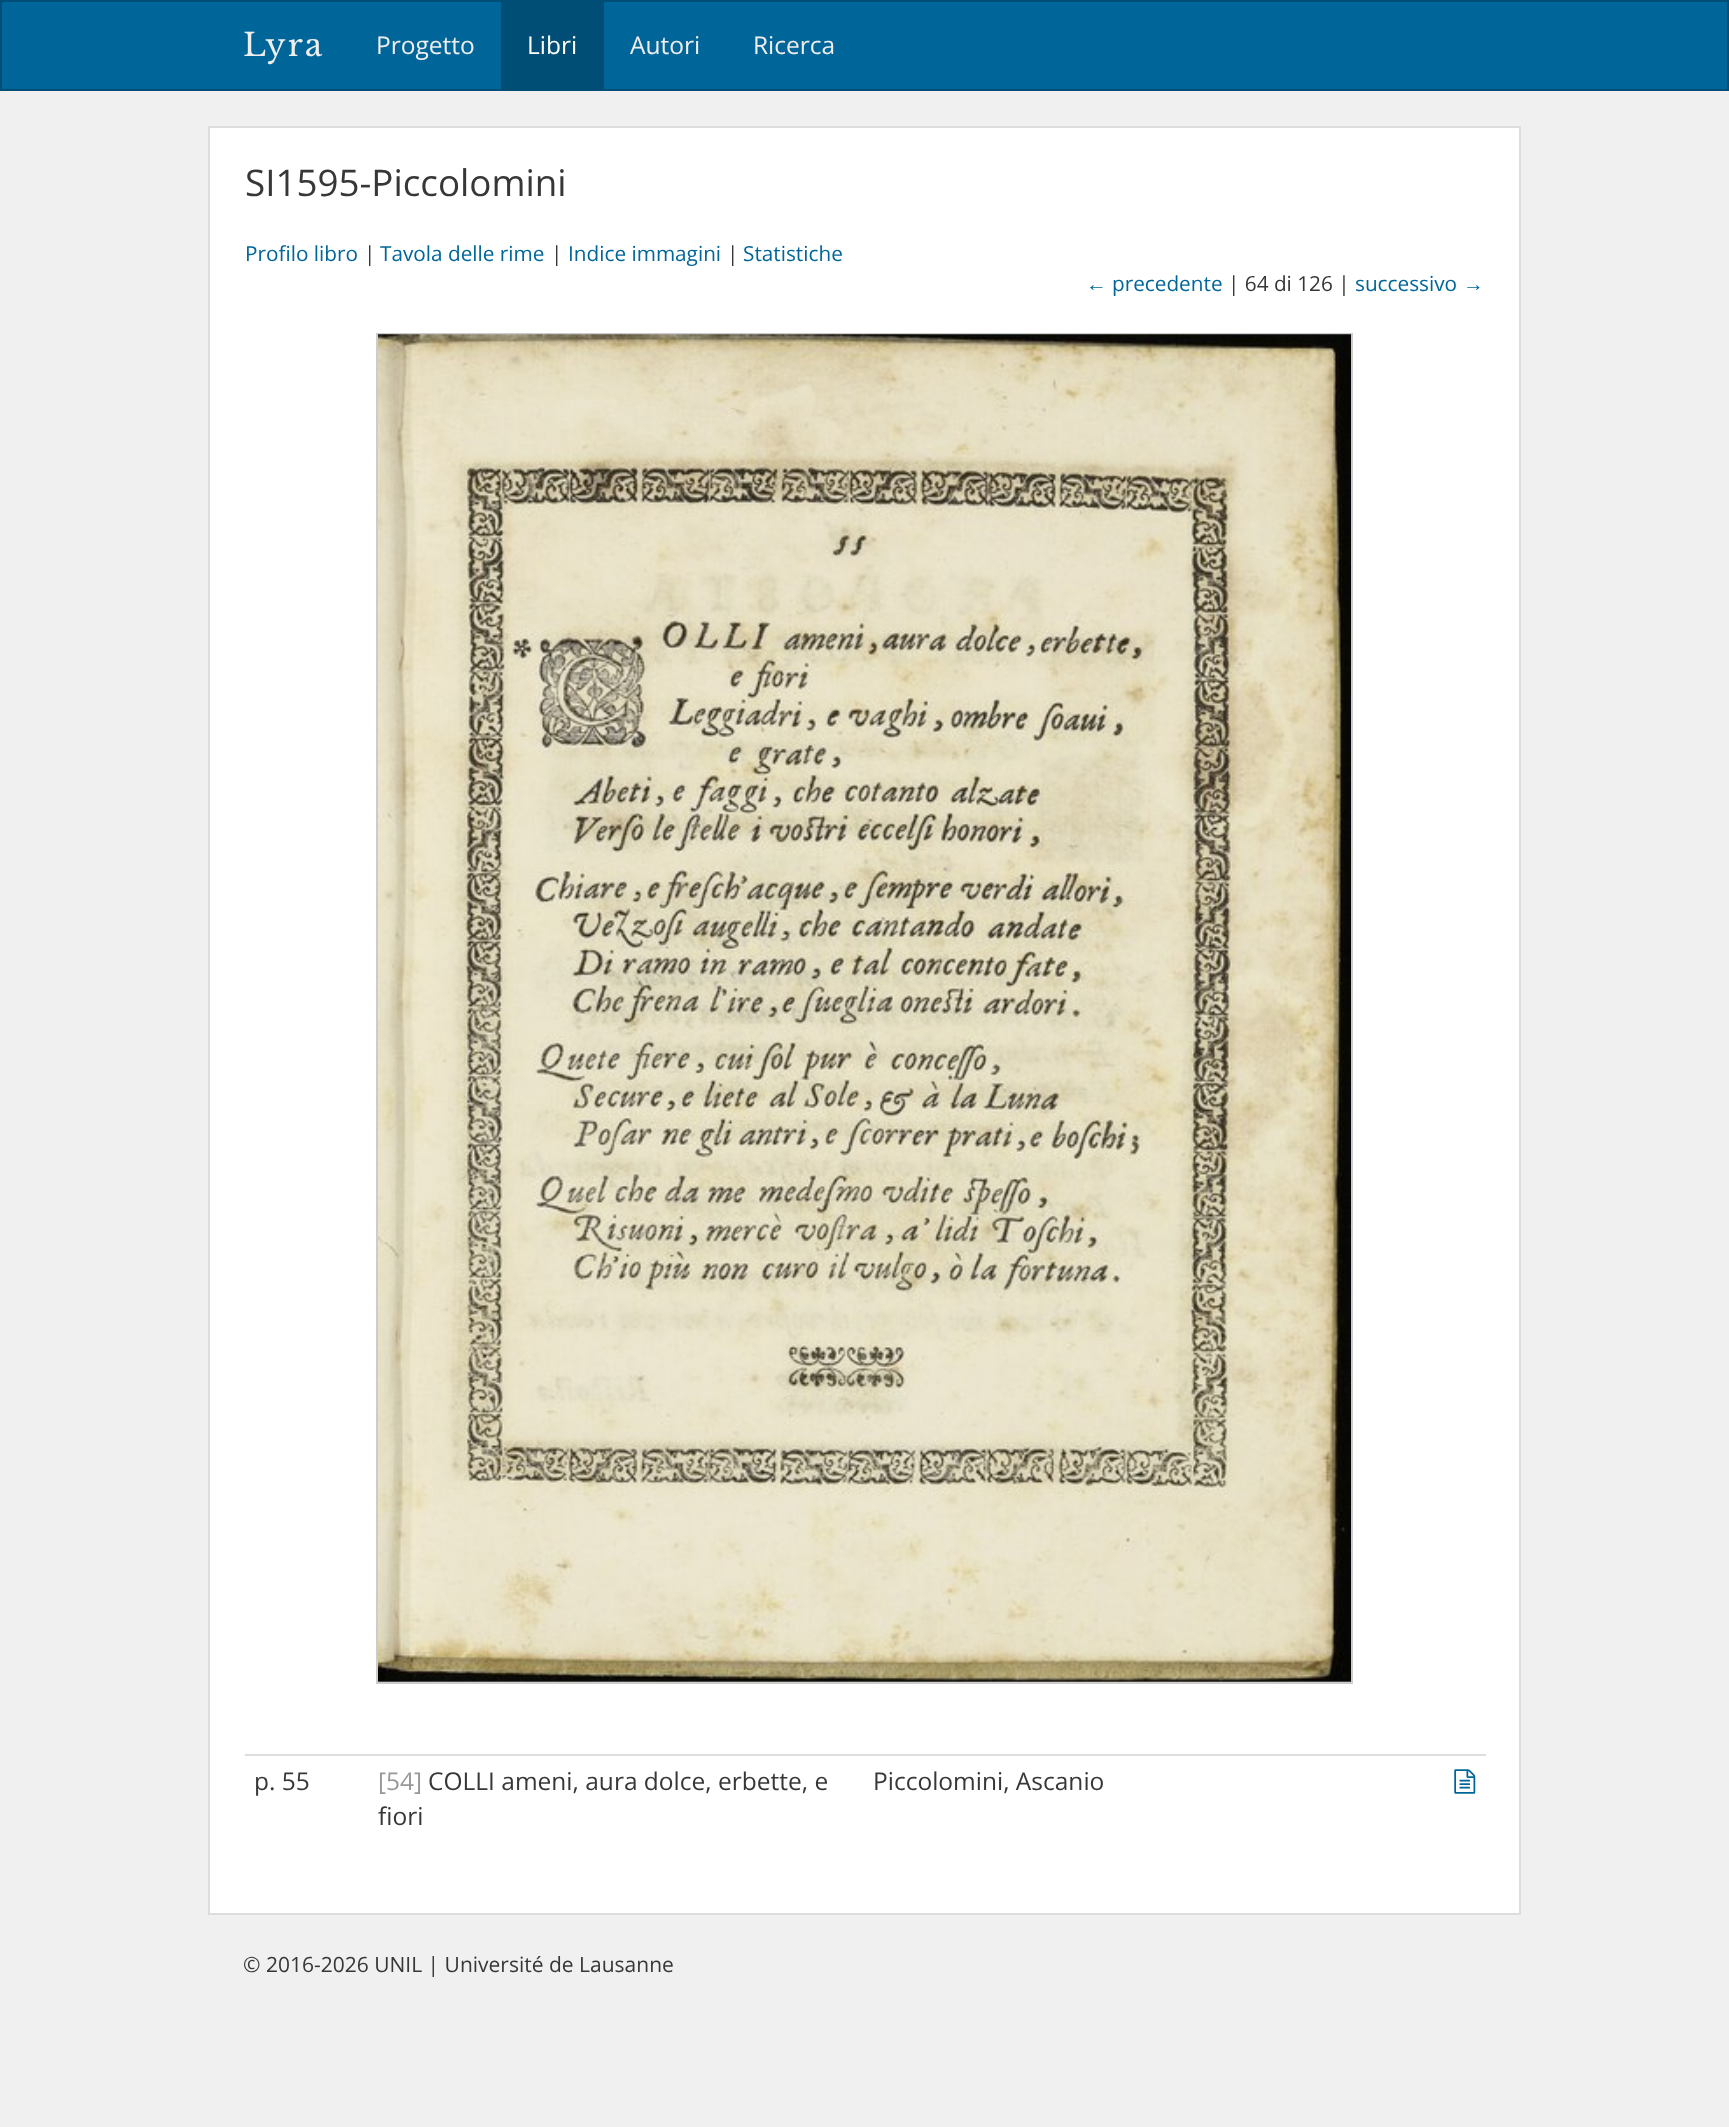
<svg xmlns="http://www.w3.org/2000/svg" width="1729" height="2127">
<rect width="100%" height="100%" fill="#f0f0f0"/>
<rect x="1" y="1" width="1727" height="89" fill="#069" stroke="#004e75" stroke-width="2"/>
<text x="243" y="56" style="font-family:Libre Baskerville;font-size:31.5px;letter-spacing:2px;fill:#eee">Lyra</text>
<text x="376" y="54" style="font-family:Open Sans;font-size:24.5px;fill:#eee">Progetto</text>
<rect x="501" y="2" width="103" height="87" fill="#004e75"/>
<text x="527" y="54" style="font-family:Open Sans;font-size:24.5px;fill:#fff">Libri</text>
<text x="630" y="54" style="font-family:Open Sans;font-size:24.5px;fill:#eee">Autori</text>
<text x="753" y="54" style="font-family:Open Sans;font-size:24.5px;fill:#eee">Ricerca</text>
<rect x="209" y="127" width="1311" height="1787" fill="#fff" stroke="#ddd" stroke-width="2"/>
<text x="245" y="196" style="font-family:Open Sans;font-size:36.75px;fill:#373737">SI1595-Piccolomini</text>
<text x="245" y="261" style="font-family:Open Sans;font-size:20.75px;fill:#069">Profilo libro</text>
<text x="364" y="261" style="font-family:Open Sans;font-size:20.75px;fill:#373737">|</text>
<text x="380" y="261" style="font-family:Open Sans;font-size:20.75px;fill:#069">Tavola delle rime</text>
<text x="551" y="261" style="font-family:Open Sans;font-size:20.75px;fill:#373737">|</text>
<text x="568" y="261" style="font-family:Open Sans;font-size:20.75px;fill:#069">Indice immagini</text>
<text x="727" y="261" style="font-family:Open Sans;font-size:20.75px;fill:#373737">|</text>
<text x="743" y="261" style="font-family:Open Sans;font-size:20.75px;fill:#069">Statistiche</text>
<text x="1086" y="291" style="font-family:Liberation Sans;font-size:20.75px;fill:#069">←</text>
<text x="1112" y="291" style="font-family:Open Sans;font-size:20.75px;fill:#069">precedente</text>
<text x="1228" y="291" style="font-family:Open Sans;font-size:20.75px;fill:#373737">| 64 di 126 |</text>
<text x="1355" y="291" style="font-family:Open Sans;font-size:20.75px;fill:#069">successivo</text>
<text x="1463" y="291" style="font-family:Liberation Sans;font-size:20.75px;fill:#069">→</text>
<rect x="377" y="334" width="975" height="1349" fill="none" stroke="#ccc" stroke-width="2"/>
<image x="378" y="334" width="973" height="1348" href="media/1.png"/>
<rect x="245" y="1754" width="1241" height="2" fill="#ddd"/>
<image x="1454" y="1769" width="22" height="25" href="media/2.png"/>
<text x="254" y="1790" style="font-family:Open Sans;font-size:24.5px;fill:#373737">p. 55</text>
<text x="378" y="1790" style="font-family:Open Sans;font-size:24.5px;fill:#999">[54]</text>
<text x="428" y="1790" style="font-family:Open Sans;font-size:24.5px;fill:#373737">COLLI ameni, aura dolce, erbette, e</text>
<text x="378" y="1825" style="font-family:Open Sans;font-size:24.5px;fill:#373737">fiori</text>
<text x="873" y="1790" style="font-family:Open Sans;font-size:24.5px;fill:#373737">Piccolomini, Ascanio</text>
<text x="243" y="1972" style="font-family:Open Sans;font-size:21px;fill:#373737">© 2016-2026 UNIL | Université de Lausanne</text>
</svg>
